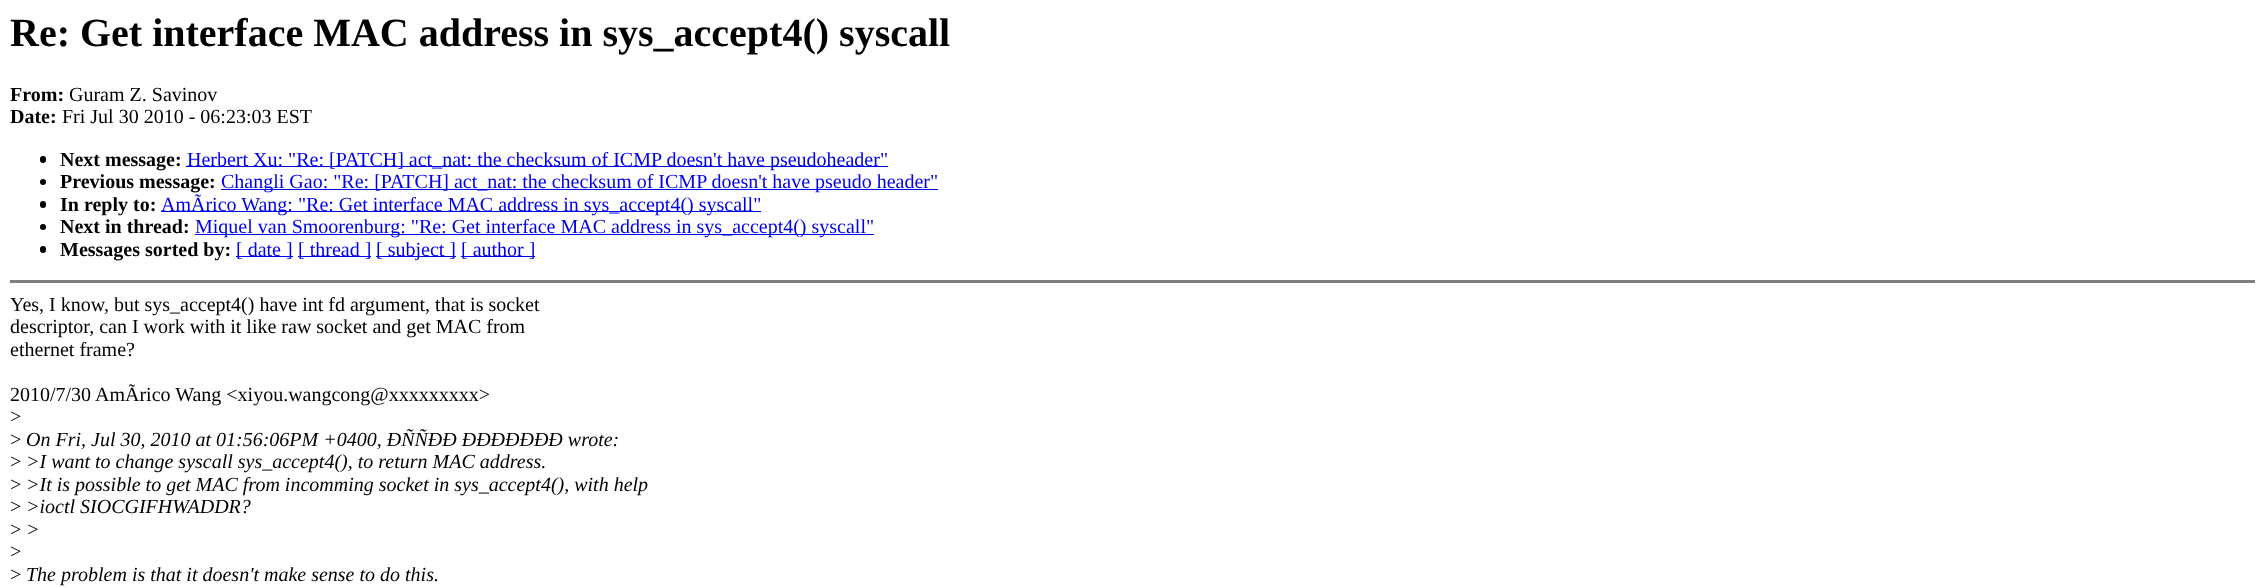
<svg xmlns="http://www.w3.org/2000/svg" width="2264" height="588">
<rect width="100%" height="100%" fill="#fff"/>
<text x="10" y="46" style="font-family:Liberation Serif;font-size:40px;font-weight:bold;fill:#000">Re: Get interface MAC address in sys_accept4() syscall</text>
<text x="10" y="101" style="font-family:Liberation Serif;font-size:20px;font-weight:bold;fill:#000">From:</text>
<text x="69" y="101" style="font-family:Liberation Serif;font-size:20px;fill:#000">Guram Z. Savinov</text>
<text x="10" y="123" style="font-family:Liberation Serif;font-size:20px;font-weight:bold;fill:#000">Date:</text>
<text x="62" y="123" style="font-family:Liberation Serif;font-size:20px;fill:#000">Fri Jul 30 2010 - 06:23:03 EST</text>
<rect x="40" y="156" width="6" height="7" rx="3" fill="#000"/>
<text x="60" y="166" style="font-family:Liberation Serif;font-size:20px;font-weight:bold;fill:#000">Next message:</text>
<rect x="186" y="166" width="702" height="1" fill="#00e"/>
<text x="187" y="166" style="font-family:Liberation Serif;font-size:20px;fill:#00e">Herbert Xu: "Re: [PATCH] act_nat: the checksum of ICMP doesn't have pseudoheader"</text>
<circle cx="43" cy="182" r="3" fill="#000"/>
<text x="60" y="188" style="font-family:Liberation Serif;font-size:20px;font-weight:bold;fill:#000">Previous message:</text>
<rect x="221" y="189" width="717" height="1" fill="#00e"/>
<text x="221" y="188" style="font-family:Liberation Serif;font-size:20px;fill:#00e">Changli Gao: "Re: [PATCH] act_nat: the checksum of ICMP doesn't have pseudo header"</text>
<rect x="40" y="201" width="6" height="7" rx="3" fill="#000"/>
<text x="60" y="211" style="font-family:Liberation Serif;font-size:20px;font-weight:bold;fill:#000">In reply to:</text>
<rect x="161" y="211" width="600" height="1" fill="#00e"/>
<text x="161" y="211" style="font-family:Liberation Serif;font-size:20px;fill:#00e">AmÃrico Wang: "Re: Get interface MAC address in sys_accept4() syscall"</text>
<circle cx="43" cy="227" r="3" fill="#000"/>
<text x="60" y="233" style="font-family:Liberation Serif;font-size:20px;font-weight:bold;fill:#000">Next in thread:</text>
<rect x="195" y="234" width="679" height="1" fill="#00e"/>
<text x="195" y="233" style="font-family:Liberation Serif;font-size:20px;fill:#00e">Miquel van Smoorenburg: "Re: Get interface MAC address in sys_accept4() syscall"</text>
<rect x="40" y="246" width="6" height="7" rx="3" fill="#000"/>
<text x="60" y="256" style="font-family:Liberation Serif;font-size:20px;font-weight:bold;fill:#000">Messages sorted by:</text>
<rect x="236" y="256" width="57" height="1" fill="#00e"/>
<text x="236" y="256" style="font-family:Liberation Serif;font-size:20px;fill:#00e">[ date ]</text>
<rect x="298" y="256" width="73" height="1" fill="#00e"/>
<text x="298" y="256" style="font-family:Liberation Serif;font-size:20px;fill:#00e">[ thread ]</text>
<rect x="376" y="256" width="80" height="1" fill="#00e"/>
<text x="376" y="256" style="font-family:Liberation Serif;font-size:20px;fill:#00e">[ subject ]</text>
<rect x="461" y="256" width="74" height="1" fill="#00e"/>
<text x="461" y="256" style="font-family:Liberation Serif;font-size:20px;fill:#00e">[ author ]</text>
<rect x="10" y="280" width="2245" height="3" fill="#808080"/>
<text x="10" y="311" style="font-family:Liberation Serif;font-size:20px;fill:#000">Yes, I know, but sys_accept4() have int fd argument, that is socket</text>
<text x="10" y="333" style="font-family:Liberation Serif;font-size:20px;fill:#000">descriptor, can I work with it like raw socket and get MAC from</text>
<text x="10" y="356" style="font-family:Liberation Serif;font-size:20px;fill:#000">ethernet frame?</text>
<text x="10" y="401" style="font-family:Liberation Serif;font-size:20px;fill:#000">2010/7/30 AmÃrico Wang &lt;xiyou.wangcong@xxxxxxxxx&gt;</text>
<text x="10" y="423" style="font-family:Liberation Serif;font-size:20px;fill:#000">&gt;</text>
<text x="10" y="446" style="font-family:Liberation Serif;font-size:20px;fill:#000">&gt;</text>
<text x="26" y="446" style="font-family:Liberation Serif;font-size:20px;font-style:italic;fill:#000">On Fri, Jul 30, 2010 at 01:56:06PM +0400, ÐÑÑÐÐ ÐÐÐÐÐÐÐ wrote:</text>
<text x="10" y="468" style="font-family:Liberation Serif;font-size:20px;fill:#000">&gt;</text>
<text x="26" y="468" style="font-family:Liberation Serif;font-size:20px;font-style:italic;fill:#000">&gt;I want to change syscall sys_accept4(), to return MAC address.</text>
<text x="10" y="491" style="font-family:Liberation Serif;font-size:20px;fill:#000">&gt;</text>
<text x="26" y="491" style="font-family:Liberation Serif;font-size:20px;font-style:italic;fill:#000">&gt;It is possible to get MAC from incomming socket in sys_accept4(), with help</text>
<text x="10" y="513" style="font-family:Liberation Serif;font-size:20px;fill:#000">&gt;</text>
<text x="26" y="513" style="font-family:Liberation Serif;font-size:20px;font-style:italic;fill:#000">&gt;ioctl SIOCGIFHWADDR?</text>
<text x="10" y="536" style="font-family:Liberation Serif;font-size:20px;fill:#000">&gt;</text>
<text x="26" y="536" style="font-family:Liberation Serif;font-size:20px;font-style:italic;fill:#000">&gt;</text>
<text x="10" y="558" style="font-family:Liberation Serif;font-size:20px;fill:#000">&gt;</text>
<text x="10" y="581" style="font-family:Liberation Serif;font-size:20px;fill:#000">&gt;</text>
<text x="26" y="581" style="font-family:Liberation Serif;font-size:20px;font-style:italic;fill:#000">The problem is that it doesn't make sense to do this.</text>
</svg>
